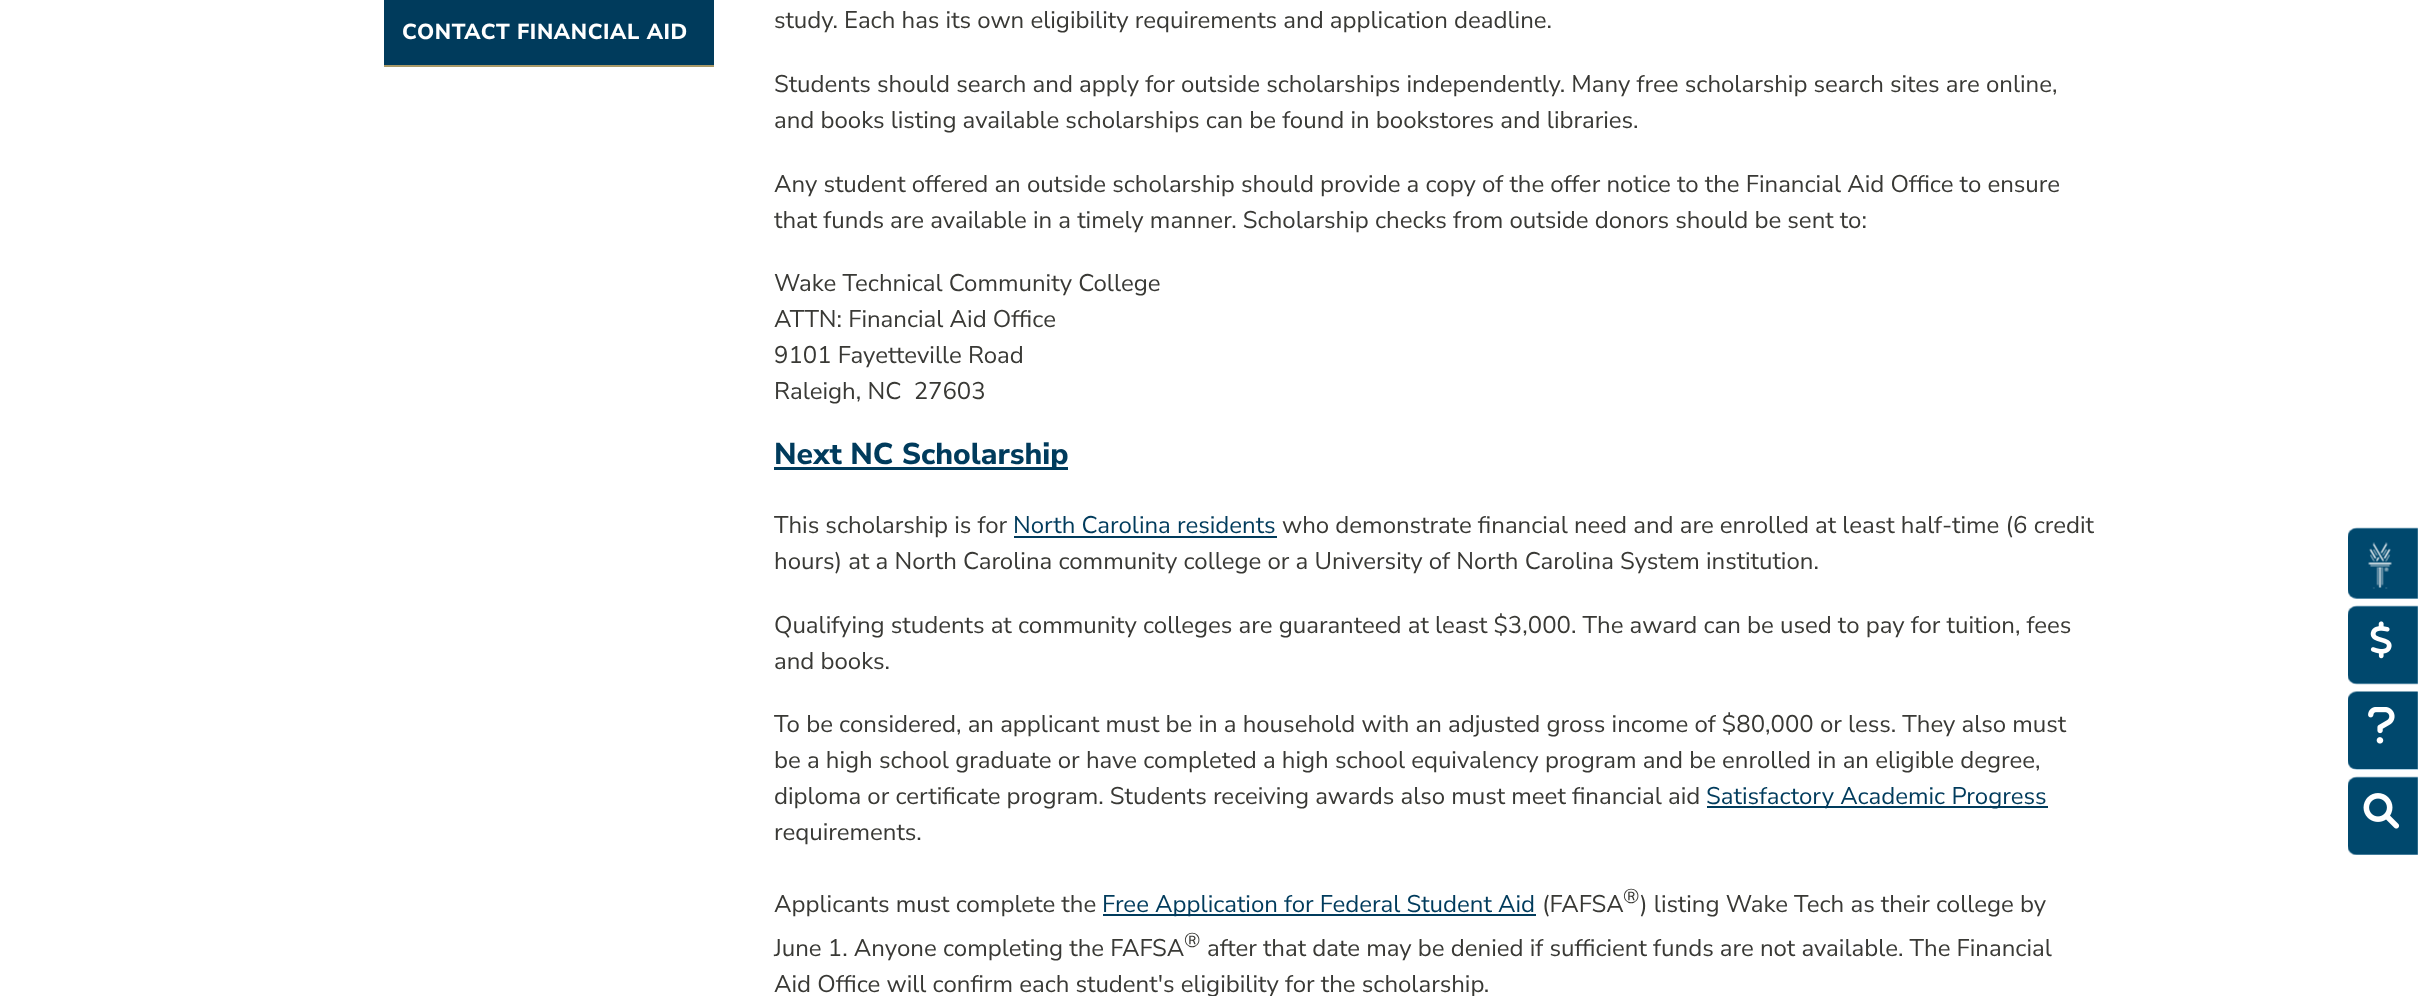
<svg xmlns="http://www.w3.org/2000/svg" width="2418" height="996">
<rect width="100%" height="100%" fill="#fff"/>
<rect x="384" width="330" height="65" fill="#003b5c"/>
<rect x="384" y="65" width="330" height="2" fill="#a89968"/>
<text x="402" y="39" style="font-family:Nunito Sans;font-size:21.6px;font-weight:800;letter-spacing:0.65px;fill:#fff">CONTACT FINANCIAL AID</text>
<text x="774" y="28" style="font-family:Nunito Sans;font-size:24px;fill:#393935">study. Each has its own eligibility requirements and application deadline.</text>
<text x="774" y="92" style="font-family:Nunito Sans;font-size:24px;fill:#393935">Students should search and apply for outside scholarships independently. Many free scholarship search sites are online,</text>
<text x="774" y="128" style="font-family:Nunito Sans;font-size:24px;fill:#393935">and books listing available scholarships can be found in bookstores and libraries.</text>
<text x="774" y="192" style="font-family:Nunito Sans;font-size:24px;fill:#393935">Any student offered an outside scholarship should provide a copy of the offer notice to the Financial Aid Office to ensure</text>
<text x="774" y="228" style="font-family:Nunito Sans;font-size:24px;fill:#393935">that funds are available in a timely manner. Scholarship checks from outside donors should be sent to:</text>
<text x="774" y="291" style="font-family:Nunito Sans;font-size:24px;fill:#393935">Wake Technical Community College</text>
<text x="774" y="327" style="font-family:Nunito Sans;font-size:24px;fill:#393935">ATTN: Financial Aid Office</text>
<text x="774" y="363" style="font-family:Nunito Sans;font-size:24px;fill:#393935">9101 Fayetteville Road</text>
<text x="774" y="399" style="font-family:Nunito Sans;font-size:24px;fill:#393935" xml:space="preserve">Raleigh, NC  27603</text>
<rect x="774" y="467" width="294" height="3" fill="#003b5c"/>
<text x="774" y="464" style="font-family:Nunito Sans;font-size:30px;font-weight:800;fill:#003b5c">Next NC Scholarship</text>
<text x="774" y="533" style="font-family:Nunito Sans;font-size:24px;fill:#393935">This scholarship is for</text>
<text x="1013" y="533" style="font-family:Nunito Sans;font-size:24px;fill:#003b5c">North Carolina residents</text>
<rect x="1014" y="536" width="263" height="2" fill="#003b5c"/>
<text x="1282" y="533" style="font-family:Nunito Sans;font-size:24px;fill:#393935">who demonstrate financial need and are enrolled at least half-time (6 credit</text>
<text x="774" y="569" style="font-family:Nunito Sans;font-size:24px;fill:#393935">hours) at a North Carolina community college or a University of North Carolina System institution.</text>
<text x="774" y="633" style="font-family:Nunito Sans;font-size:24px;fill:#393935">Qualifying students at community colleges are guaranteed at least $3,000. The award can be used to pay for tuition, fees</text>
<text x="774" y="669" style="font-family:Nunito Sans;font-size:24px;fill:#393935">and books.</text>
<text x="774" y="732" style="font-family:Nunito Sans;font-size:24px;fill:#393935">To be considered, an applicant must be in a household with an adjusted gross income of $80,000 or less. They also must</text>
<text x="774" y="768" style="font-family:Nunito Sans;font-size:24px;fill:#393935">be a high school graduate or have completed a high school equivalency program and be enrolled in an eligible degree,</text>
<text x="774" y="804" style="font-family:Nunito Sans;font-size:24px;fill:#393935">diploma or certificate program. Students receiving awards also must meet financial aid</text>
<rect x="1707" y="806" width="341" height="2" fill="#003b5c"/>
<text x="1706" y="804" style="font-family:Nunito Sans;font-size:24px;fill:#003b5c">Satisfactory Academic Progress</text>
<text x="774" y="840" style="font-family:Nunito Sans;font-size:24px;fill:#393935">requirements.</text>
<text x="774" y="912" style="font-family:Nunito Sans;font-size:24px;fill:#393935">Applicants must complete the</text>
<rect x="1103" y="914" width="433" height="2" fill="#003b5c"/>
<text x="1102" y="912" style="font-family:Nunito Sans;font-size:24px;fill:#003b5c">Free Application for Federal Student Aid</text>
<text x="1542" y="912" style="font-family:Nunito Sans;font-size:24px;fill:#393935">(FAFSA</text>
<text x="1623" y="903" style="font-family:Nunito Sans;font-size:20px;fill:#393935">®</text>
<text x="1640" y="912" style="font-family:Nunito Sans;font-size:24px;fill:#393935">) listing Wake Tech as their college by</text>
<text x="774" y="956" style="font-family:Nunito Sans;font-size:24px;fill:#393935">June 1. Anyone completing the FAFSA</text>
<text x="1184" y="947" style="font-family:Nunito Sans;font-size:20px;fill:#393935">®</text>
<text x="1207" y="956" style="font-family:Nunito Sans;font-size:24px;fill:#393935">after that date may be denied if sufficient funds are not available. The Financial</text>
<text x="774" y="992" style="font-family:Nunito Sans;font-size:24px;fill:#393935">Aid Office will confirm each student's eligibility for the scholarship.</text>
<rect x="2348" y="528" width="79" height="71" rx="9" fill="#b2d2e4"/>
<image x="2348" y="527" width="70" height="72" href="media/1.png"/>
<image x="2368" y="542" width="24" height="47" href="media/2.png"/>
<rect x="2348" y="606" width="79" height="78" rx="9" fill="#b2d2e4"/>
<image x="2348" y="605" width="70" height="80" href="media/3.png"/>
<image x="2370" y="621" width="22" height="38" href="media/4.png"/>
<rect x="2348" y="692" width="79" height="78" rx="9" fill="#b2d2e4"/>
<image x="2348" y="691" width="70" height="78" href="media/5.png"/>
<image x="2368" y="707" width="27" height="37" href="media/6.png"/>
<rect x="2348" y="777" width="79" height="78" rx="9" fill="#b2d2e4"/>
<image x="2348" y="776" width="70" height="79" href="media/7.png"/>
<image x="2363" y="793" width="37" height="36" href="media/8.png"/>
</svg>
